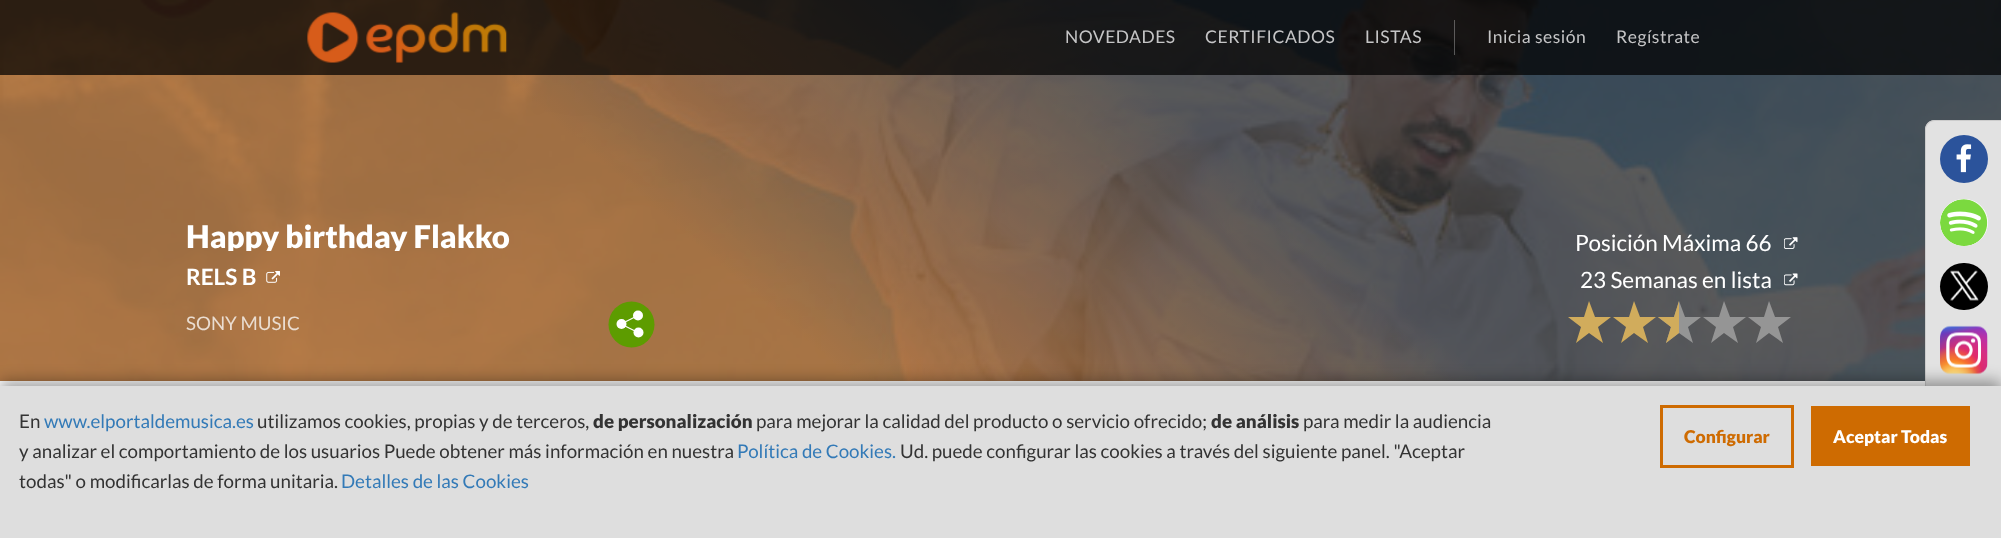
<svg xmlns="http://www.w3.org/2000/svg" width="2001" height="538">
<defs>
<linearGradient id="g1" gradientUnits="userSpaceOnUse" x1="476" y1="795" x2="1526" y2="-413"><stop offset="0.35" stop-color="#b3621a"/><stop offset="0.61" stop-color="#333"/></linearGradient>
<clipPath id="clip1"><rect x="185" y="220" width="630" height="31"/></clipPath>
<clipPath id="clip2"><rect x="1658" y="300" width="21" height="44"/></clipPath>
</defs>
<rect width="100%" height="100%" fill="#fff"/>
<rect width="2001" height="381" fill="url(#g1)"/>
<image x="0" y="0" width="2001" height="381" href="media/2.png"/>
<rect width="2001" height="75" fill="#000000b8"/>
<image x="307" y="12" width="201" height="51" href="media/1.png"/>
<text x="1065" y="43" style="font-family:Lato;font-size:17.5px;letter-spacing:0.5px;fill:#c5c5c6">NOVEDADES</text>
<text x="1205" y="43" style="font-family:Lato;font-size:17.5px;letter-spacing:0.5px;fill:#c5c5c6">CERTIFICADOS</text>
<text x="1365" y="43" style="font-family:Lato;font-size:17.5px;letter-spacing:0.5px;fill:#c5c5c6">LISTAS</text>
<rect x="1454" y="20" width="1" height="35" fill="#ffffff4d"/>
<text x="1487" y="43" style="font-family:Lato;font-size:17.5px;letter-spacing:0.5px;fill:#c5c5c6">Inicia sesión</text>
<text x="1616" y="43" style="font-family:Lato;font-size:17.5px;letter-spacing:0.5px;fill:#c5c5c6">Regístrate</text>
<g clip-path="url(#clip1)">
<text x="186" y="248" style="font-family:Lato;font-size:31.25px;font-weight:900;fill:#fff">Happy birthday Flakko</text>
</g>
<text x="186" y="285" style="font-family:Lato;font-size:22.5px;font-weight:bold;fill:#fff">RELS B</text>
<image x="266" y="271" width="14" height="12" href="media/3.png"/>
<text x="186" y="330" style="font-family:Lato;font-size:18.75px;fill:#eaddd1">SONY MUSIC</text>
<circle cx="631.5" cy="324.5" r="23" fill="#5d9c00"/>
<circle cx="638" cy="315.5" r="5" fill="#fff"/>
<circle cx="621.5" cy="324" r="5" fill="#fff"/>
<circle cx="638.5" cy="332.5" r="5" fill="#fff"/>
<path d="M637 316l-13 6.5m-1 2.5l15 7.5" fill="none" stroke="#fff" stroke-width="1.2"/>
<image x="1784" y="237" width="14" height="12" href="media/4.png"/>
<text x="1575" y="251" style="font-family:Lato;font-size:22.5px;fill:#fff">Posición Máxima 66</text>
<image x="1784" y="273" width="14" height="13" href="media/5.png"/>
<text x="1580" y="288" style="font-family:Lato;font-size:22.5px;fill:#fff">23 Semanas en lista</text>
<path d="M1589 301l6 16h16l-13 10l5 16l-14-10l-13 10l5-16l-13-10h16z" fill="#d1ac5c"/>
<path d="M1634 301l6 16h16l-13 10l5 16l-14-10l-13 10l5-16l-13-10h16z" fill="#d1ac5c"/>
<path d="M1679 301l6 16h16l-13 10l5 16l-14-10l-13 10l5-16l-13-10h16z" fill="#a0a0a0d9"/>
<g clip-path="url(#clip2)">
<path d="M1679 301l6 16h16l-13 10l5 16l-14-10l-13 10l5-16l-13-10h16z" fill="#d1ac5c"/>
</g>
<path d="M1724 301l6 16h16l-13 10l5 16l-14-10l-13 10l5-16l-13-10h16z" fill="#a0a0a0d9"/>
<path d="M1769 301l6 16h16l-13 10l5 16l-14-10l-13 10l5-16l-13-10h16z" fill="#a0a0a0d9"/>
<path d="M1935 120h66v343h-66c-5.5 0-10-4.5-10-10v-323c0-5.5 4.5-10 10-10z" fill="#e2e2e2"/>
<path d="M1935 120h66v342h-66c-6 0-10-4-10-10v-322c0-6 4-10 10-10zm0 1h66v340h-66c-5 0-9-4-9-9v-322c0-5 4-9 9-9z" fill="#ccc" fill-rule="evenodd"/>
<circle cx="1964" cy="159" r="24" fill="#2b539b"/>
<image x="1956" y="144" width="16" height="29" href="media/6.png"/>
<rect x="1940" y="199" width="48" height="47" rx="23.5" fill="#fff"/>
<image x="1940" y="199" width="48" height="47" href="media/7.png"/>
<rect x="1940" y="263" width="48" height="47" rx="23.5" fill="#000"/>
<image x="1950" y="270" width="29" height="31" href="media/8.png"/>
<image x="1940" y="325" width="48" height="50" href="media/9.png"/>
<rect y="381" width="2001" height="153" fill="#0000005e" filter="blur(7.5px)"/>
<rect y="386" width="2001" height="152" fill="#dedede"/>
<text x="19" y="428" style="font-family:Lato;font-size:18.75px;fill:#333">En</text>
<text x="44" y="428" style="font-family:Lato;font-size:18.75px;fill:#337ab7">www.elportaldemusica.es</text>
<text x="257" y="428" style="font-family:Lato;font-size:18.75px;fill:#333">utilizamos cookies, propias y de terceros,</text>
<text x="593" y="428" style="font-family:Lato;font-size:18.75px;font-weight:900;fill:#333">de personalización</text>
<text x="756" y="428" style="font-family:Lato;font-size:18.75px;fill:#333">para mejorar la calidad del producto o servicio ofrecido;</text>
<text x="1211" y="428" style="font-family:Lato;font-size:18.75px;font-weight:900;fill:#333">de análisis</text>
<text x="1303" y="428" style="font-family:Lato;font-size:18.75px;fill:#333">para medir la audiencia</text>
<text x="19" y="458" style="font-family:Lato;font-size:18.75px;fill:#333">y analizar el comportamiento de los usuarios Puede obtener más información en nuestra</text>
<text x="737" y="458" style="font-family:Lato;font-size:18.75px;fill:#337ab7">Política de Cookies.</text>
<text x="900" y="458" style="font-family:Lato;font-size:18.75px;fill:#333">Ud. puede configurar las cookies a través del siguiente panel. "Aceptar</text>
<text x="19" y="488" style="font-family:Lato;font-size:18.75px;fill:#333">todas" o modificarlas de forma unitaria.</text>
<text x="341" y="488" style="font-family:Lato;font-size:18.75px;fill:#337ab7">Detalles de las Cookies</text>
<rect x="1661.5" y="406.5" width="131" height="60" fill="none" stroke="#ce6b01" stroke-width="3"/>
<text x="1684" y="443" style="font-family:Lato;font-size:17.5px;font-weight:900;fill:#ce6b01">Configurar</text>
<rect x="1811" y="406" width="159" height="60" fill="#ce6b01"/>
<text x="1833" y="443" style="font-family:Lato;font-size:17.5px;font-weight:900;fill:#fff">Aceptar Todas</text>
</svg>
